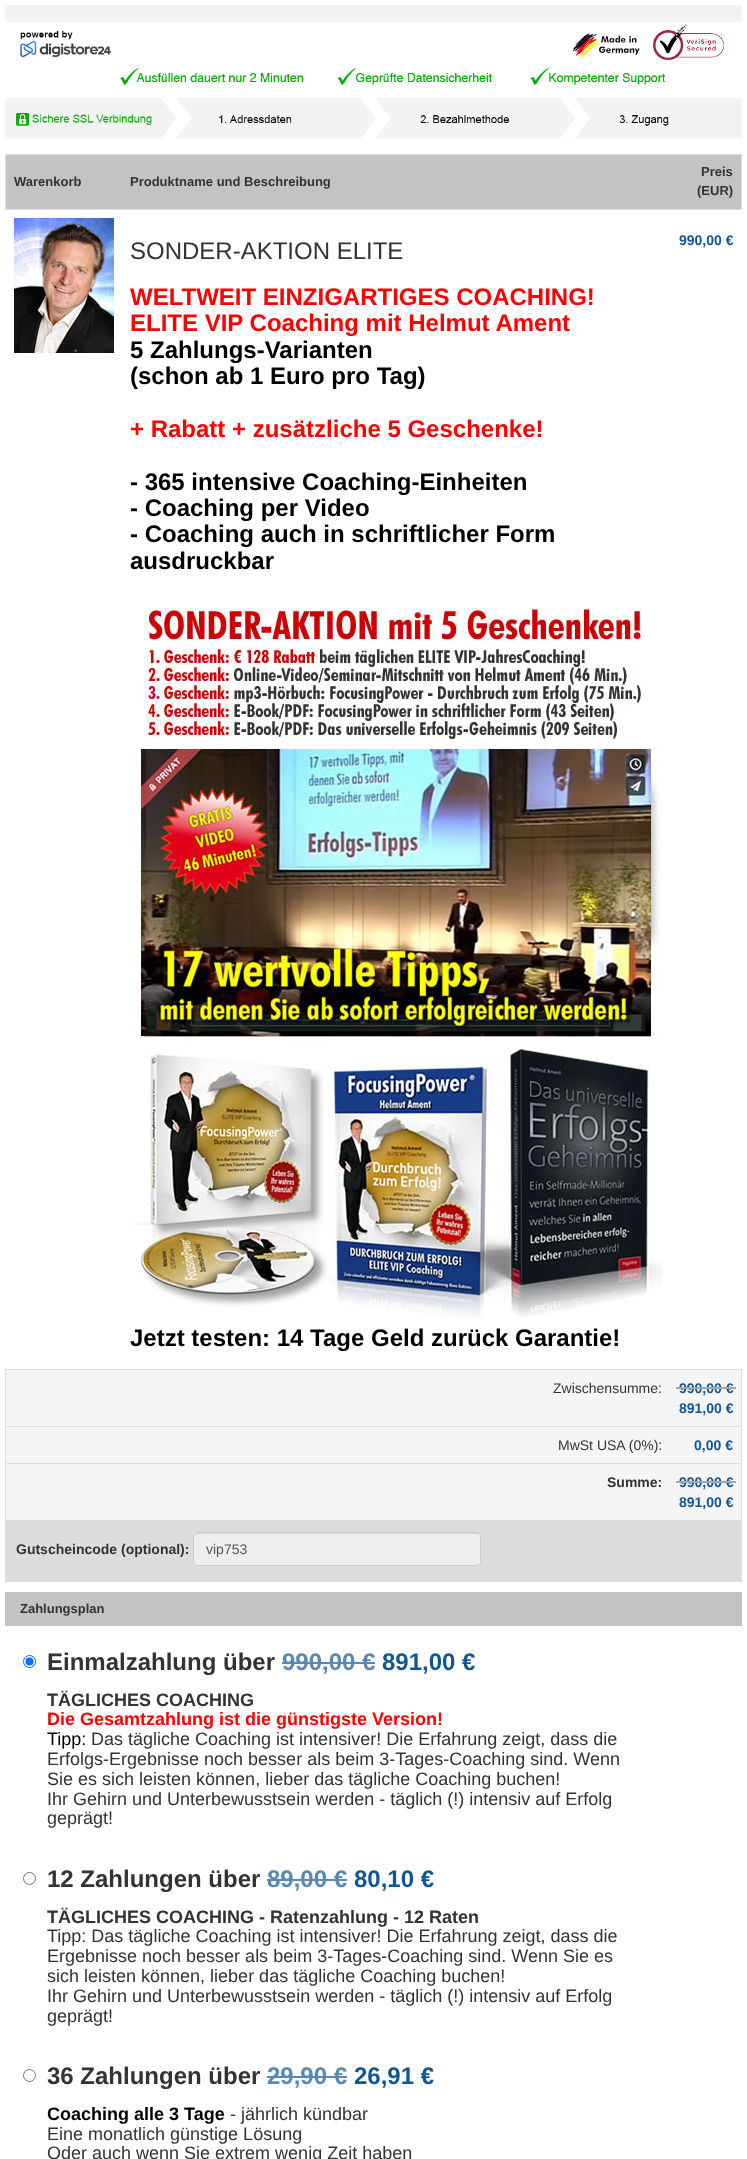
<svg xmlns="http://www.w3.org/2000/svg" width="747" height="2159">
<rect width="100%" height="100%" fill="#fff"/>
<image x="5" y="5" width="737" height="134" href="media/1.png"/>
<rect x="6" y="155" width="735" height="54" fill="#c3c3c3"/>
<rect x="5" y="154" width="737" height="1" fill="#ddd"/>
<rect x="741" y="154" width="1" height="56" fill="#ddd"/>
<rect x="5" y="154" width="1" height="56" fill="#ddd"/>
<text x="14" y="186" style="font-family:Liberation Sans;font-size:13px;font-weight:bold;fill:#333">Warenkorb</text>
<text x="130" y="186" style="font-family:Liberation Sans;font-size:13px;font-weight:bold;fill:#333">Produktname und Beschreibung</text>
<text x="701" y="176" style="font-family:Liberation Sans;font-size:13px;font-weight:bold;fill:#333">Preis</text>
<text x="697" y="195" style="font-family:Liberation Sans;font-size:13px;font-weight:bold;fill:#333">(EUR)</text>
<image x="14" y="218" width="100" height="135" href="media/2.png"/>
<text x="130" y="259" style="font-family:Liberation Sans;font-size:24px;fill:#333">SONDER-AKTION ELITE</text>
<text x="130" y="305" style="font-family:Liberation Sans;font-size:24px;font-weight:bold;fill:#f00">WELTWEIT EINZIGARTIGES COACHING!</text>
<text x="130" y="331" style="font-family:Liberation Sans;font-size:24px;font-weight:bold;fill:#f00">ELITE VIP Coaching mit Helmut Ament</text>
<text x="130" y="358" style="font-family:Liberation Sans;font-size:24px;font-weight:bold;fill:#000">5 Zahlungs-Varianten</text>
<text x="130" y="384" style="font-family:Liberation Sans;font-size:24px;font-weight:bold;fill:#000">(schon ab 1 Euro pro Tag)</text>
<text x="130" y="437" style="font-family:Liberation Sans;font-size:24px;font-weight:bold;fill:#f00">+ Rabatt + zusätzliche 5 Geschenke!</text>
<text x="130" y="490" style="font-family:Liberation Sans;font-size:24px;font-weight:bold;fill:#000">- 365 intensive Coaching-Einheiten</text>
<text x="130" y="516" style="font-family:Liberation Sans;font-size:24px;font-weight:bold;fill:#000">- Coaching per Video</text>
<text x="130" y="542" style="font-family:Liberation Sans;font-size:24px;font-weight:bold;fill:#000">- Coaching auch in schriftlicher Form</text>
<text x="130" y="569" style="font-family:Liberation Sans;font-size:24px;font-weight:bold;fill:#000">ausdruckbar</text>
<image x="132" y="609" width="530" height="710" href="media/3.png"/>
<text x="130" y="1346" style="font-family:Liberation Sans;font-size:24px;font-weight:bold;fill:#000">Jetzt testen: 14 Tage Geld zurück Garantie!</text>
<rect x="5" y="209" width="737" height="1" fill="#ddd"/>
<text x="679" y="245" style="font-family:Liberation Sans;font-size:14px;font-weight:bold;fill:#105694">990,00 €</text>
<rect x="6" y="1370" width="735" height="56" fill="#f5f5f5"/>
<rect x="5" y="1369" width="737" height="1" fill="#ddd"/>
<rect x="5" y="1426" width="737" height="1" fill="#ddd"/>
<rect x="5" y="1463" width="737" height="1" fill="#ddd"/>
<rect x="741" y="1463" width="1" height="58" fill="#ddd"/>
<rect x="741" y="1426" width="1" height="38" fill="#ddd"/>
<rect x="741" y="1369" width="1" height="58" fill="#ddd"/>
<rect x="5" y="1520" width="737" height="62" fill="#ddd"/>
<rect x="5" y="1463" width="1" height="58" fill="#ddd"/>
<rect x="5" y="1426" width="1" height="38" fill="#ddd"/>
<rect x="5" y="1369" width="1" height="58" fill="#ddd"/>
<text x="553" y="1393" style="font-family:Liberation Sans;font-size:14px;fill:#333">Zwischensumme:</text>
<text x="679" y="1393" style="font-family:Liberation Sans;font-size:14px;font-weight:bold;fill:#105694">990,00 €</text>
<rect x="676" y="1387" width="60" height="2" fill="#a6a6a6"/>
<text x="679" y="1413" style="font-family:Liberation Sans;font-size:14px;font-weight:bold;fill:#105694">891,00 €</text>
<rect x="6" y="1427" width="735" height="36" fill="#f5f5f5"/>
<text x="558" y="1450" style="font-family:Liberation Sans;font-size:14px;fill:#333">MwSt USA (0%):</text>
<text x="694" y="1450" style="font-family:Liberation Sans;font-size:14px;font-weight:bold;fill:#105694">0,00 €</text>
<rect x="6" y="1464" width="735" height="56" fill="#f5f5f5"/>
<text x="607" y="1487" style="font-family:Liberation Sans;font-size:14px;font-weight:bold;fill:#333">Summe:</text>
<text x="679" y="1487" style="font-family:Liberation Sans;font-size:14px;font-weight:bold;fill:#105694">990,00 €</text>
<rect x="676" y="1481" width="60" height="2" fill="#a6a6a6"/>
<text x="679" y="1507" style="font-family:Liberation Sans;font-size:14px;font-weight:bold;fill:#105694">891,00 €</text>
<text x="16" y="1554" style="font-family:Liberation Sans;font-size:14px;font-weight:bold;fill:#333">Gutscheincode (optional):</text>
<rect x="193" y="1532" width="288" height="34" rx="4" fill="#eee"/>
<path d="M197 1534h280c2 0 3 1 3 3c0-2-1-4-3-4h-280c-2 0-3 2-3 4c0-2 1-3 3-3z" fill="#dcdcdc"/>
<rect x="193.5" y="1532.5" width="287" height="33" rx="3.5" fill="none" stroke="#ccc"/>
<text x="206" y="1554" style="font-family:Liberation Sans;font-size:14px;fill:#555">vip753</text>
<rect x="5" y="1592" width="737" height="34" fill="#c3c3c3"/>
<text x="20" y="1613" style="font-family:Liberation Sans;font-size:13px;font-weight:bold;fill:#333">Zahlungsplan</text>
<circle cx="29.5" cy="1661.5" r="6" fill="none" stroke="#0075ff"/>
<circle cx="29.5" cy="1661.5" r="4" fill="#0075ff"/>
<text x="47" y="1670" style="font-family:Liberation Sans;font-size:24px;font-weight:bold;fill:#333">Einmalzahlung über</text>
<text x="282" y="1670" style="font-family:Liberation Sans;font-size:24px;font-weight:bold;fill:#5889b4">990,00 €</text>
<rect x="282" y="1662" width="93" height="2" fill="#5889b4"/>
<text x="382" y="1670" style="font-family:Liberation Sans;font-size:24px;font-weight:bold;fill:#105694">891,00 €</text>
<text x="47" y="1706" style="font-family:Liberation Sans;font-size:18px;font-weight:bold;fill:#333">TÄGLICHES COACHING</text>
<text x="47" y="1725" style="font-family:Liberation Sans;font-size:18px;font-weight:bold;fill:#f00">Die Gesamtzahlung ist die günstigste Version!</text>
<text x="47" y="1745" style="font-family:Liberation Sans;font-size:18px;fill:#000">Tipp:</text>
<text x="91" y="1745" style="font-family:Liberation Sans;font-size:18px;fill:#333">Das tägliche Coaching ist intensiver! Die Erfahrung zeigt, dass die</text>
<text x="47" y="1765" style="font-family:Liberation Sans;font-size:18px;fill:#333">Erfolgs-Ergebnisse noch besser als beim 3-Tages-Coaching sind. Wenn</text>
<text x="47" y="1785" style="font-family:Liberation Sans;font-size:18px;fill:#333">Sie es sich leisten können, lieber das tägliche Coaching buchen!</text>
<text x="47" y="1805" style="font-family:Liberation Sans;font-size:18px;fill:#333">Ihr Gehirn und Unterbewusstsein werden - täglich (!) intensiv auf Erfolg</text>
<text x="47" y="1824" style="font-family:Liberation Sans;font-size:18px;fill:#333">geprägt!</text>
<circle cx="29.5" cy="1878.5" r="6" fill="none" stroke="#767676"/>
<text x="47" y="1887" style="font-family:Liberation Sans;font-size:24px;font-weight:bold;fill:#333">12 Zahlungen über</text>
<text x="267" y="1887" style="font-family:Liberation Sans;font-size:24px;font-weight:bold;fill:#5889b4">89,00 €</text>
<rect x="267" y="1879" width="80" height="2" fill="#5889b4"/>
<text x="354" y="1887" style="font-family:Liberation Sans;font-size:24px;font-weight:bold;fill:#105694">80,10 €</text>
<text x="47" y="1923" style="font-family:Liberation Sans;font-size:18px;font-weight:bold;fill:#333">TÄGLICHES COACHING - Ratenzahlung - 12 Raten</text>
<text x="47" y="1942" style="font-family:Liberation Sans;font-size:18px;fill:#333">Tipp: Das tägliche Coaching ist intensiver! Die Erfahrung zeigt, dass die</text>
<text x="47" y="1962" style="font-family:Liberation Sans;font-size:18px;fill:#333">Ergebnisse noch besser als beim 3-Tages-Coaching sind. Wenn Sie es</text>
<text x="47" y="1982" style="font-family:Liberation Sans;font-size:18px;fill:#333">sich leisten können, lieber das tägliche Coaching buchen!</text>
<text x="47" y="2002" style="font-family:Liberation Sans;font-size:18px;fill:#333">Ihr Gehirn und Unterbewusstsein werden - täglich (!) intensiv auf Erfolg</text>
<text x="47" y="2022" style="font-family:Liberation Sans;font-size:18px;fill:#333">geprägt!</text>
<circle cx="29.5" cy="2075.5" r="6" fill="none" stroke="#767676"/>
<text x="47" y="2084" style="font-family:Liberation Sans;font-size:24px;font-weight:bold;fill:#333">36 Zahlungen über</text>
<text x="267" y="2084" style="font-family:Liberation Sans;font-size:24px;font-weight:bold;fill:#5889b4">29,90 €</text>
<rect x="267" y="2076" width="80" height="2" fill="#5889b4"/>
<text x="354" y="2084" style="font-family:Liberation Sans;font-size:24px;font-weight:bold;fill:#105694">26,91 €</text>
<text x="47" y="2120" style="font-family:Liberation Sans;font-size:18px;font-weight:bold;fill:#000">Coaching alle 3 Tage</text>
<text x="230" y="2120" style="font-family:Liberation Sans;font-size:18px;fill:#333">- jährlich kündbar</text>
<text x="47" y="2140" style="font-family:Liberation Sans;font-size:18px;fill:#333">Eine monatlich günstige Lösung</text>
<text x="47" y="2159" style="font-family:Liberation Sans;font-size:18px;fill:#333">Oder auch wenn Sie extrem wenig Zeit haben</text>
</svg>
